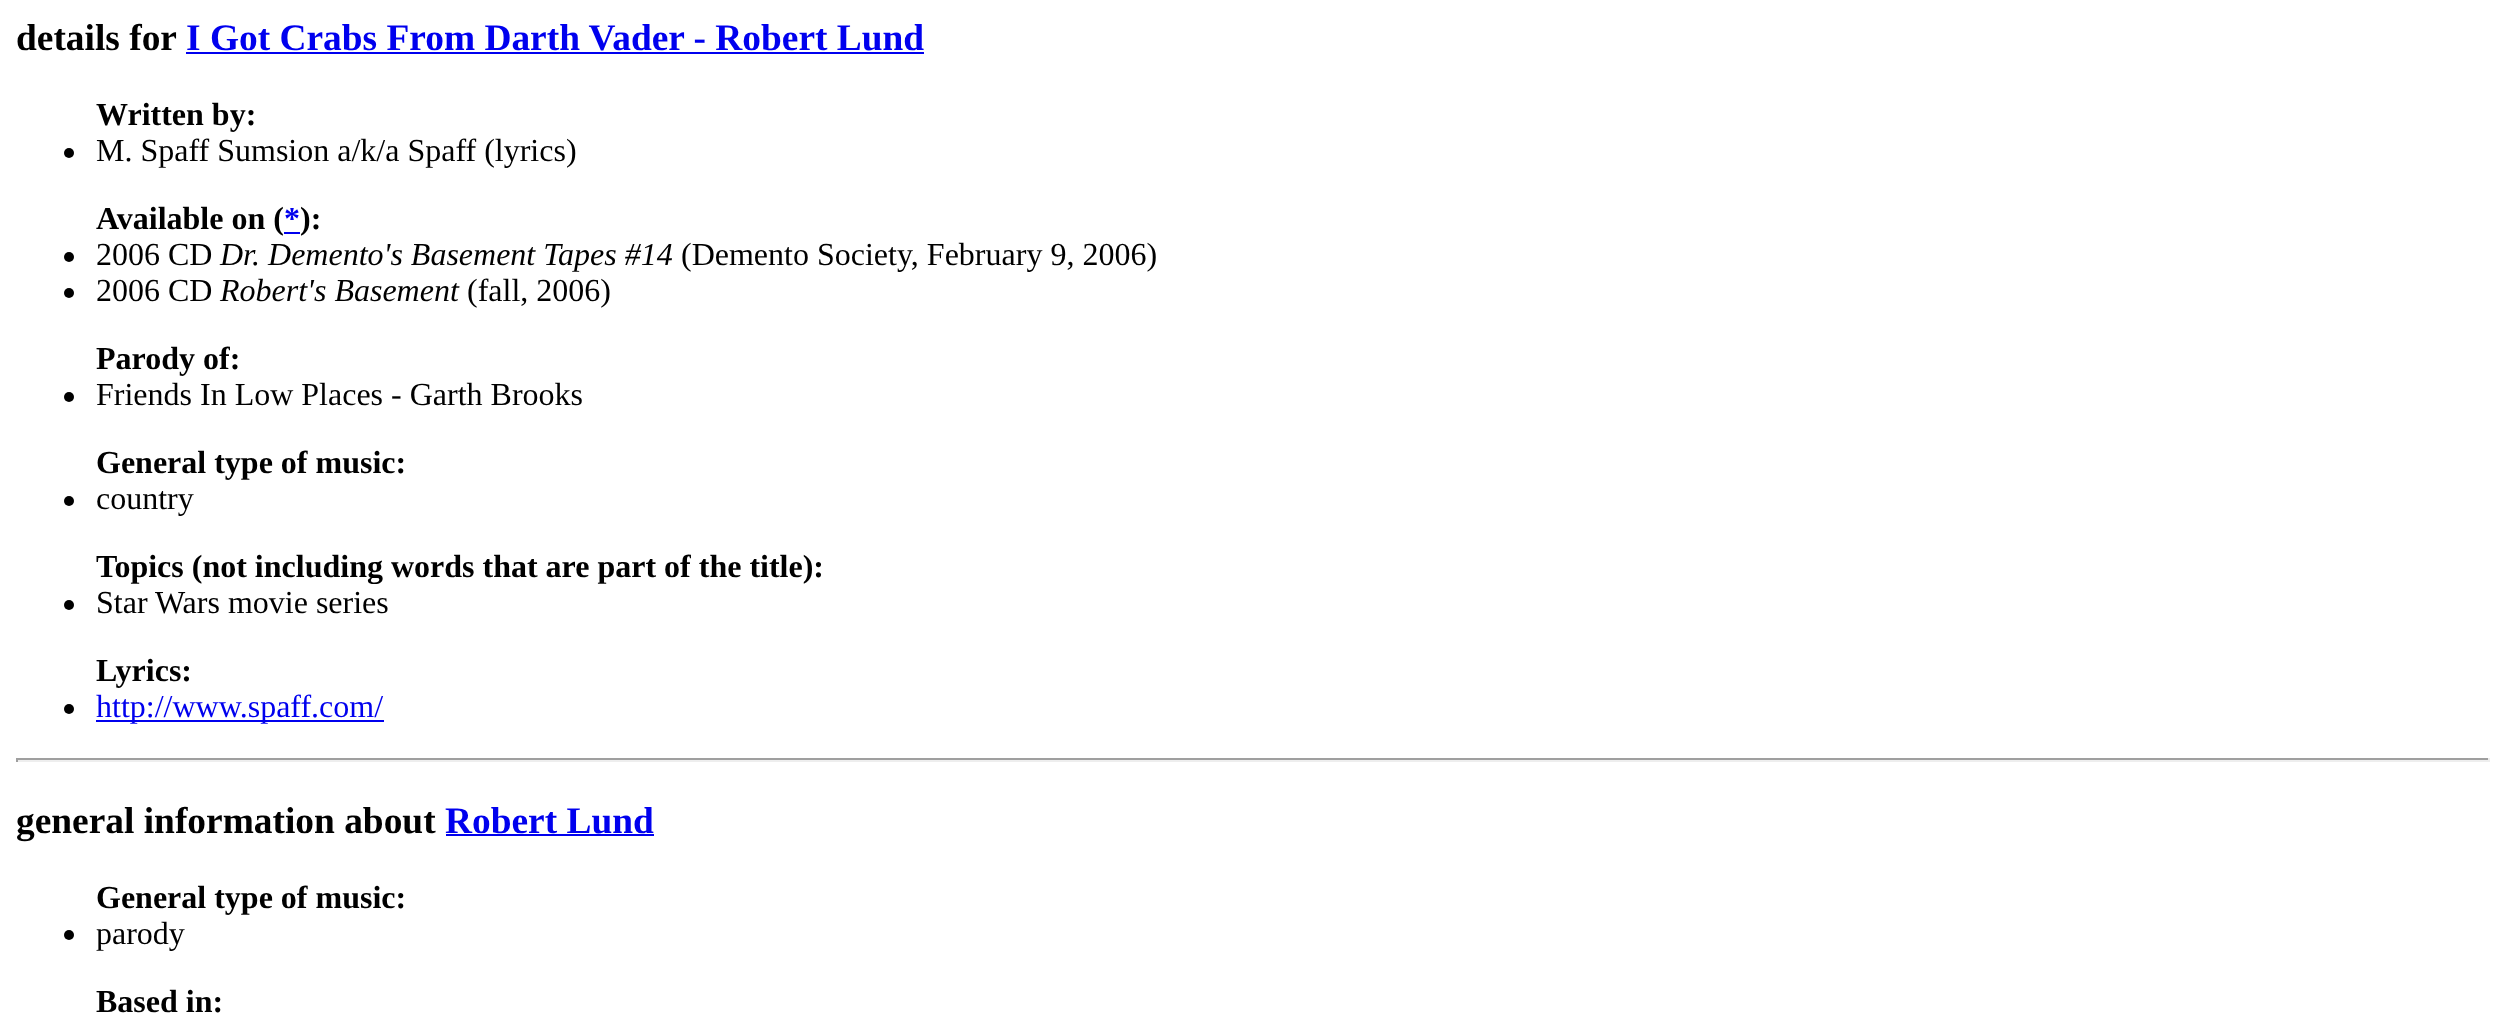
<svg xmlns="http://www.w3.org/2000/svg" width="2506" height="1014">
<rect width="100%" height="100%" fill="#fff"/>
<text x="16" y="50" style="font-family:Liberation Serif;font-size:37.4px;font-weight:bold;fill:#000">details for</text>
<text x="186" y="50" style="font-family:Liberation Serif;font-size:37.4px;font-weight:bold;fill:#00e">I Got Crabs From Darth Vader - Robert Lund</text>
<rect x="186" y="52" width="738" height="2" fill="#00e"/>
<text x="96" y="125" style="font-family:Liberation Serif;font-size:32px;font-weight:bold;fill:#000">Written by:</text>
<circle cx="69" cy="153" r="5" fill="#000"/>
<text x="96" y="161" style="font-family:Liberation Serif;font-size:32px;fill:#000">M. Spaff Sumsion a/k/a Spaff (lyrics)</text>
<text x="96" y="229" style="font-family:Liberation Serif;font-size:32px;font-weight:bold;fill:#000">Available on (</text>
<text x="284" y="229" style="font-family:Liberation Serif;font-size:32px;font-weight:bold;fill:#00e">*</text>
<text x="300" y="229" style="font-family:Liberation Serif;font-size:32px;font-weight:bold;fill:#000">):</text>
<rect x="284" y="232" width="16" height="2" fill="#00e"/>
<circle cx="69" cy="257" r="5" fill="#000"/>
<text x="96" y="265" style="font-family:Liberation Serif;font-size:32px;fill:#000">2006 CD</text>
<text x="220" y="265" style="font-family:Liberation Serif;font-size:32px;font-style:italic;fill:#000">Dr. Demento's Basement Tapes #14</text>
<text x="681" y="265" style="font-family:Liberation Serif;font-size:32px;fill:#000">(Demento Society, February 9, 2006)</text>
<circle cx="69" cy="293" r="5" fill="#000"/>
<text x="96" y="301" style="font-family:Liberation Serif;font-size:32px;fill:#000">2006 CD</text>
<text x="220" y="301" style="font-family:Liberation Serif;font-size:32px;font-style:italic;fill:#000">Robert's Basement</text>
<text x="467" y="301" style="font-family:Liberation Serif;font-size:32px;fill:#000">(fall, 2006)</text>
<text x="96" y="369" style="font-family:Liberation Serif;font-size:32px;font-weight:bold;fill:#000">Parody of:</text>
<circle cx="69" cy="397" r="5" fill="#000"/>
<text x="96" y="405" style="font-family:Liberation Serif;font-size:32px;fill:#000">Friends In Low Places - Garth Brooks</text>
<text x="96" y="473" style="font-family:Liberation Serif;font-size:32px;font-weight:bold;fill:#000">General type of music:</text>
<circle cx="69" cy="501" r="5" fill="#000"/>
<text x="96" y="509" style="font-family:Liberation Serif;font-size:32px;fill:#000">country</text>
<text x="96" y="577" style="font-family:Liberation Serif;font-size:32px;font-weight:bold;fill:#000">Topics (not including words that are part of the title):</text>
<circle cx="69" cy="605" r="5" fill="#000"/>
<text x="96" y="613" style="font-family:Liberation Serif;font-size:32px;fill:#000">Star Wars movie series</text>
<text x="96" y="681" style="font-family:Liberation Serif;font-size:32px;font-weight:bold;fill:#000">Lyrics:</text>
<circle cx="69" cy="709" r="5" fill="#000"/>
<rect x="96" y="720" width="288" height="2" fill="#00e"/>
<text x="96" y="717" style="font-family:Liberation Serif;font-size:32px;fill:#00e">http://www.spaff.com/</text>
<rect x="16" y="758" width="2474" height="2" fill="#9f9f9f"/>
<rect x="2488" y="758" width="2" height="4" fill="#eee"/>
<rect x="16" y="760" width="2474" height="2" fill="#eee"/>
<rect x="16" y="758" width="2" height="4" fill="#9f9f9f"/>
<text x="16" y="833" style="font-family:Liberation Serif;font-size:37.4px;font-weight:bold;fill:#000">general information about</text>
<text x="445" y="833" style="font-family:Liberation Serif;font-size:37.4px;font-weight:bold;fill:#00e">Robert Lund</text>
<rect x="446" y="834" width="208" height="2" fill="#00e"/>
<text x="96" y="908" style="font-family:Liberation Serif;font-size:32px;font-weight:bold;fill:#000">General type of music:</text>
<circle cx="69" cy="935" r="5" fill="#000"/>
<text x="96" y="944" style="font-family:Liberation Serif;font-size:32px;fill:#000">parody</text>
<text x="96" y="1012" style="font-family:Liberation Serif;font-size:32px;font-weight:bold;fill:#000">Based in:</text>
</svg>
